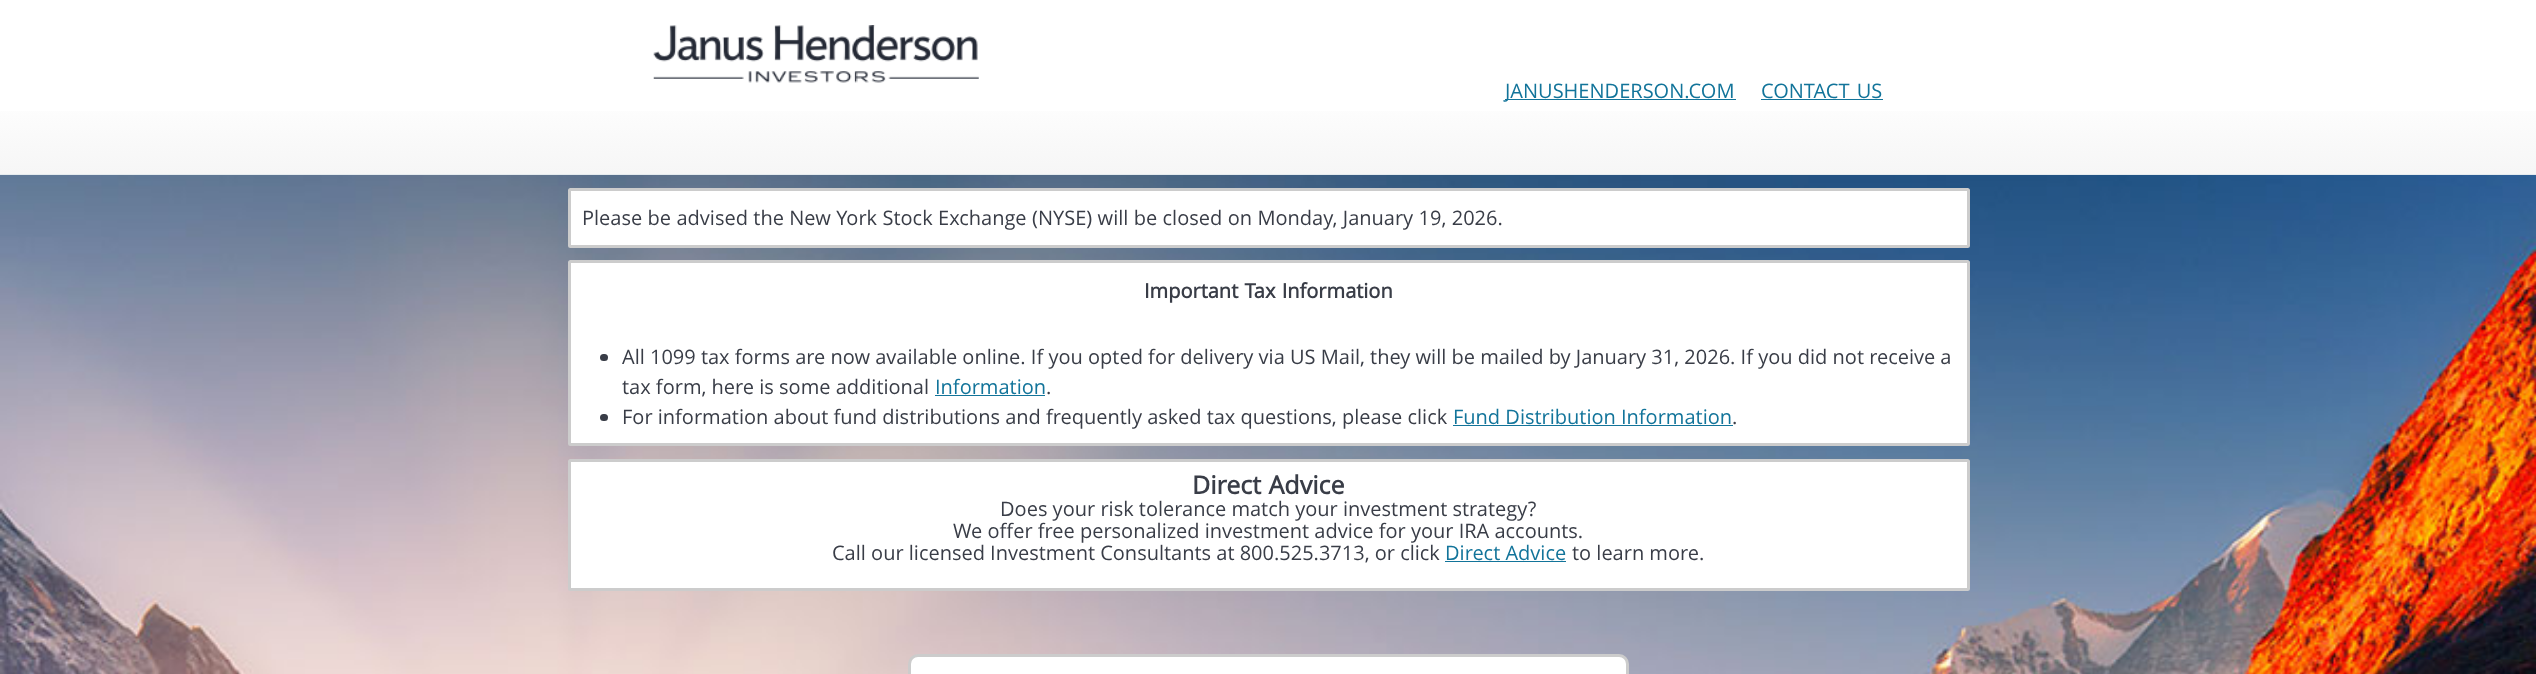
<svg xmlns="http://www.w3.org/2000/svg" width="2536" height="674">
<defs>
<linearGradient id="g1" gradientUnits="userSpaceOnUse" x1="1268" y1="0" x2="1268" y2="174"><stop offset="0.5" stop-color="#fff"/><stop offset="1" stop-color="#f6f6f6"/></linearGradient>
</defs>
<rect width="100%" height="100%" fill="#fff"/>
<image x="0" y="175" width="2536" height="499" href="media/1.png"/>
<rect y="111" width="2536" height="63" fill="url(#g1)"/>
<rect y="174" width="2536" height="1" fill="#e5ebee"/>
<image x="653" y="25" width="326" height="58" href="media/2.png"/>
<rect x="1505" y="99" width="231" height="1" fill="#12749a"/>
<text x="1505" y="98" style="font-family:Open Sans;font-size:20px;fill:#12749a">JANUSHENDERSON.COM</text>
<text x="1761" y="98" word-spacing="2" style="font-family:Open Sans;font-size:20px;fill:#12749a">CONTACT US</text>
<rect x="1761" y="99" width="122" height="1" fill="#12749a"/>
<rect x="569.5" y="189.5" width="1399" height="57" rx="1" fill="#fff" stroke="#ccc" stroke-width="3"/>
<text x="582" y="225" word-spacing="0.2" style="font-family:Open Sans;font-size:20px;fill:#393d47">Please be advised the New York Stock Exchange (NYSE) will be closed on Monday, January 19, 2026.</text>
<rect x="569.5" y="261.5" width="1399" height="183" rx="1" fill="#fff" stroke="#ccc" stroke-width="3"/>
<text x="1144" y="298" word-spacing="1" style="font-family:Open Sans;font-size:20px;font-weight:bold;fill:#393d47">Important Tax Information</text>
<rect x="600" y="354" width="8" height="7" rx="3.5" fill="#393d47"/>
<text x="622" y="364" style="font-family:Open Sans;font-size:20px;fill:#393d47">All 1099 tax forms are now available online. If you opted for delivery via US Mail, they will be mailed by January 31, 2026. If you did not receive a</text>
<text x="622" y="394" style="font-family:Open Sans;font-size:20px;fill:#393d47">tax form, here is some additional</text>
<text x="935" y="394" style="font-family:Open Sans;font-size:20px;fill:#12749a">Information</text>
<rect x="935" y="395" width="110" height="1" fill="#12749a"/>
<text x="1046" y="394" style="font-family:Open Sans;font-size:20px;fill:#393d47">.</text>
<rect x="600" y="414" width="8" height="7" rx="3.5" fill="#393d47"/>
<text x="622" y="424" style="font-family:Open Sans;font-size:20px;fill:#393d47">For information about fund distributions and frequently asked tax questions, please click</text>
<text x="1453" y="424" style="font-family:Open Sans;font-size:20px;fill:#12749a">Fund Distribution Information</text>
<rect x="1453" y="425" width="280" height="1" fill="#12749a"/>
<text x="1732" y="424" style="font-family:Open Sans;font-size:20px;fill:#393d47">.</text>
<rect x="569.5" y="460.5" width="1399" height="129" rx="1" fill="#fff" stroke="#ccc" stroke-width="3"/>
<text x="1192" y="494" word-spacing="1" style="font-family:Open Sans;font-size:25px;font-weight:bold;fill:#393d47">Direct Advice</text>
<text x="1000" y="516" style="font-family:Open Sans;font-size:20px;fill:#393d47">Does your risk tolerance match your investment strategy?</text>
<text x="953" y="538" style="font-family:Open Sans;font-size:20px;fill:#393d47">We offer free personalized investment advice for your IRA accounts.</text>
<text x="832" y="560" style="font-family:Open Sans;font-size:20px;fill:#393d47">Call our licensed Investment Consultants at 800.525.3713, or click</text>
<text x="1445" y="560" style="font-family:Open Sans;font-size:20px;fill:#12749a">Direct Advice</text>
<rect x="1445" y="561" width="121" height="1" fill="#12749a"/>
<text x="1572" y="560" style="font-family:Open Sans;font-size:20px;fill:#393d47">to learn more.</text>
<rect x="909.5" y="655.5" width="718" height="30" rx="8.5" fill="#fff" stroke="#ccc" stroke-width="3"/>
</svg>
